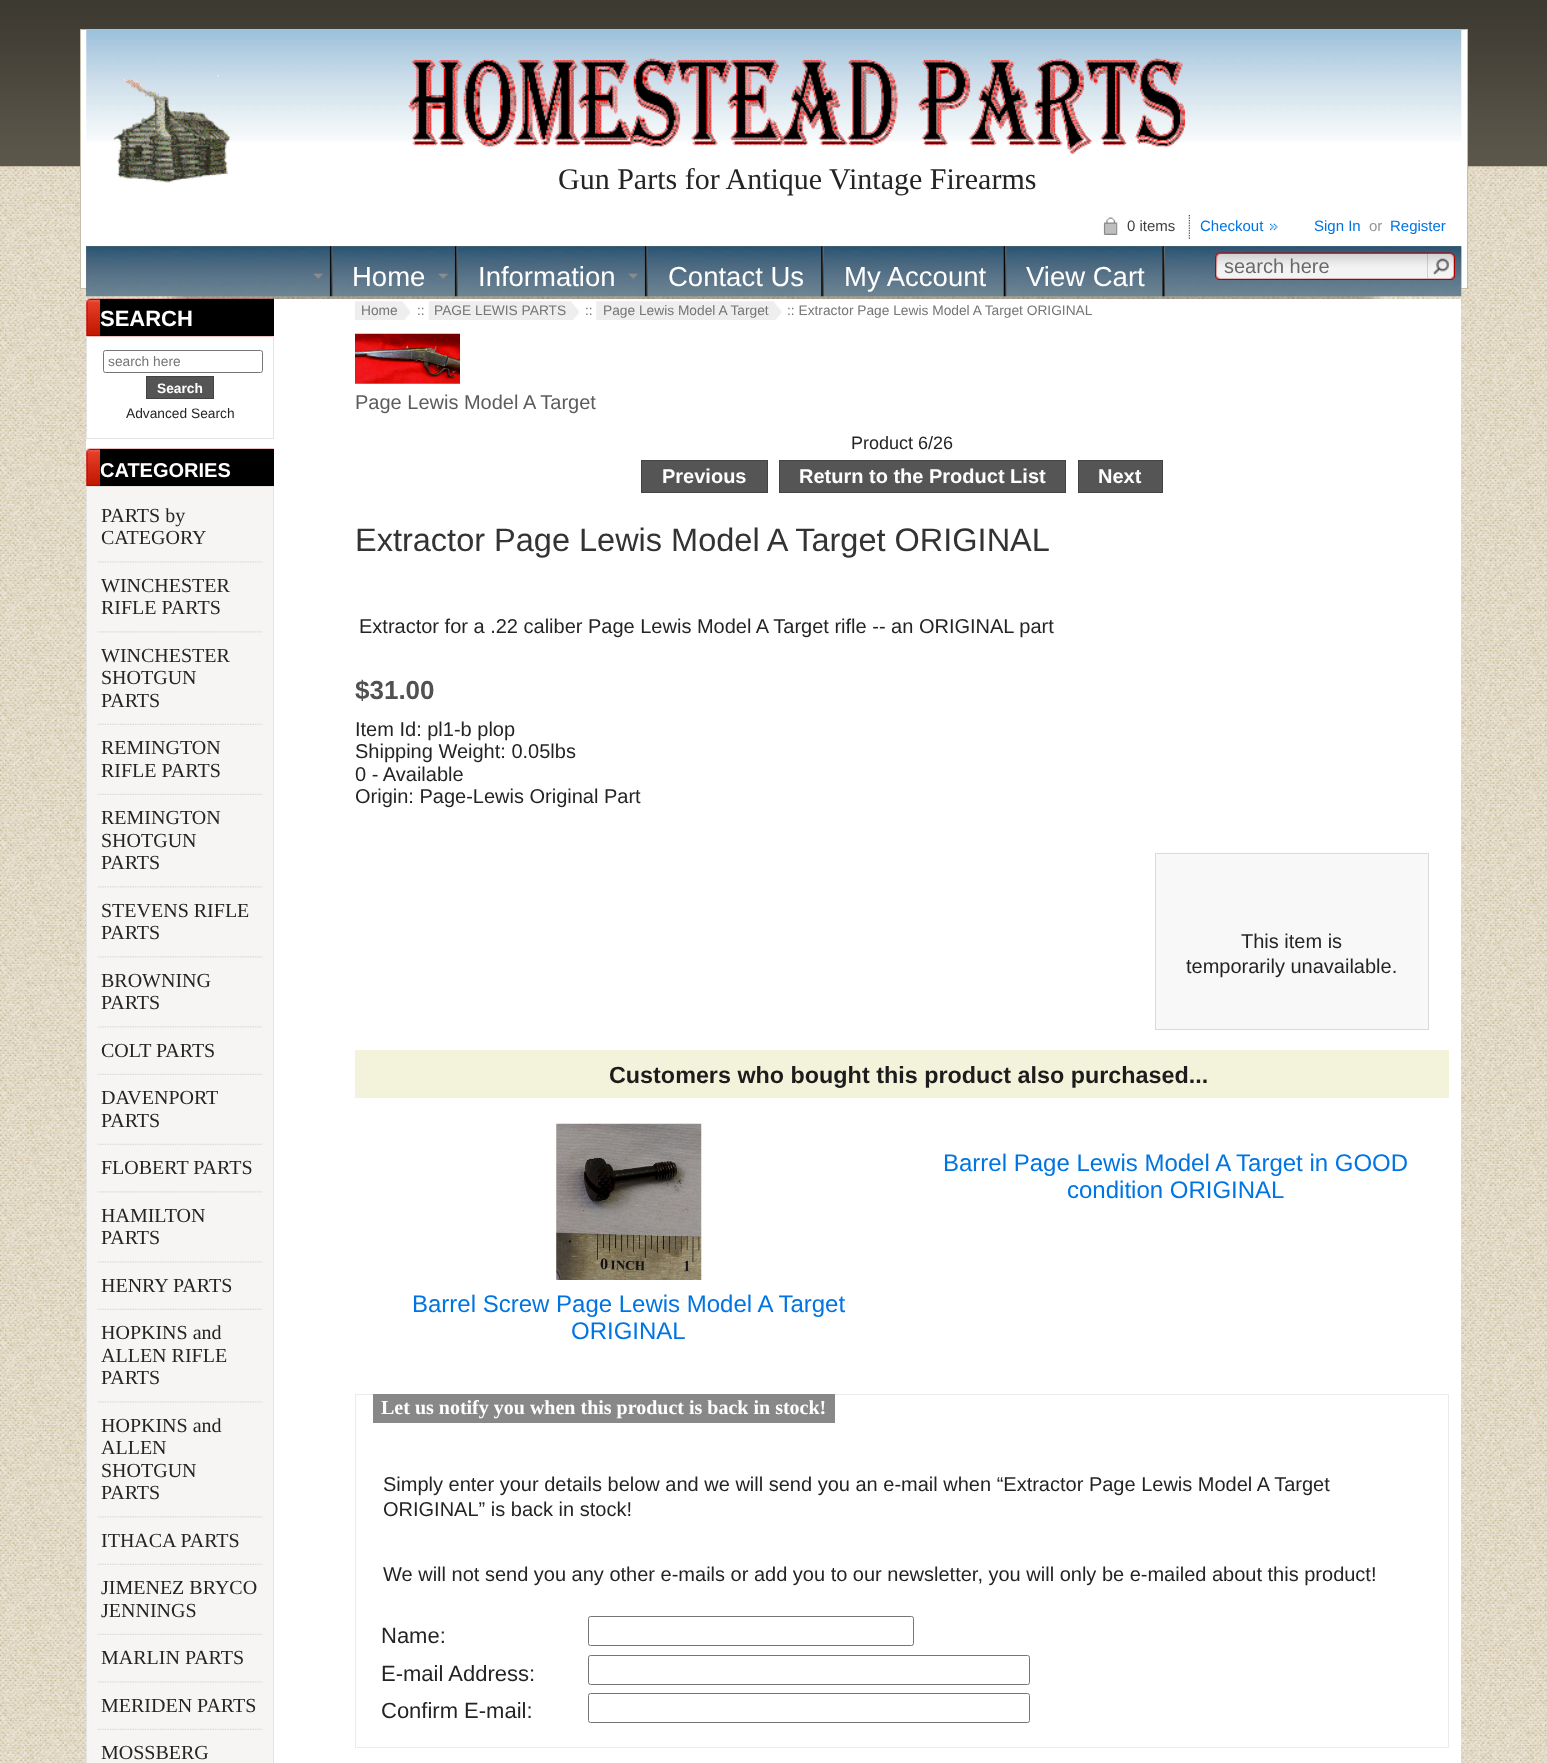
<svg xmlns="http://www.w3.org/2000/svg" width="1547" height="1763">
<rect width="100%" height="100%" fill="#fff"/>
<image x="0" y="166" width="1547" height="1597" href="media/1.png"/>
<image x="0" y="0" width="1547" height="167" href="media/2.png"/>
<image x="166" y="296" width="1218" height="3" href="media/3.png"/>
<rect x="80.5" y="29.5" width="1387" height="259" fill="#fff" stroke="#c4bfad"/>
<image x="86" y="30" width="1376" height="112" href="media/4.png"/>
<image x="113" y="75" width="118" height="108" href="media/5.png"/>
<image x="408" y="58" width="777" height="96" href="media/6.png"/>
<text x="558" y="189" style="font-family:Liberation Serif;font-size:30px;fill:#242424">Gun Parts for Antique Vintage Firearms</text>
<image x="1103" y="217" width="15" height="18" href="media/7.png"/>
<text x="1127" y="231" style="font-family:Liberation Sans;font-size:15px;fill:#3e3e3e">0 items</text>
<image x="1188" y="215" width="2" height="24" href="media/8.png"/>
<text x="1200" y="231" style="font-family:Liberation Sans;font-size:15px;fill:#0075e2">Checkout</text>
<image x="1270" y="223" width="8" height="8" href="media/9.png"/>
<text x="1314" y="231" style="font-family:Liberation Sans;font-size:15px;fill:#0075e2">Sign In</text>
<text x="1369" y="231" style="font-family:Liberation Sans;font-size:15px;fill:#979797">or</text>
<text x="1390" y="231" style="font-family:Liberation Sans;font-size:15px;fill:#0075e2">Register</text>
<image x="1461" y="246" width="1" height="42" href="media/10.png"/>
<rect x="86" y="246" width="1375" height="50" fill="#808080"/>
<image x="86" y="246" width="1376" height="51" href="media/11.png"/>
<image x="313" y="246" width="20" height="51" href="media/12.png"/>
<image x="438" y="246" width="20" height="51" href="media/13.png"/>
<text x="352" y="286" style="font-family:Liberation Sans;font-size:27.5px;fill:#fff">Home</text>
<image x="628" y="246" width="20" height="51" href="media/14.png"/>
<text x="478" y="286" style="font-family:Liberation Sans;font-size:27.5px;fill:#fff">Information</text>
<image x="821" y="246" width="3" height="51" href="media/15.png"/>
<text x="668" y="286" style="font-family:Liberation Sans;font-size:27.5px;fill:#fff">Contact Us</text>
<image x="1003" y="246" width="4" height="51" href="media/16.png"/>
<text x="844" y="286" style="font-family:Liberation Sans;font-size:27.5px;fill:#fff">My Account</text>
<image x="1162" y="246" width="3" height="51" href="media/17.png"/>
<text x="1026" y="286" style="font-family:Liberation Sans;font-size:27.5px;fill:#fff">View Cart</text>
<image x="1215" y="252" width="213" height="28" href="media/18.png"/>
<text x="1224" y="273" style="font-family:Liberation Sans;font-size:20px;fill:#696969">search here</text>
<image x="1427" y="252" width="28" height="28" href="media/19.png"/>
<rect x="86" y="299" width="1375" height="1464" fill="#fff"/>
<image x="86" y="298" width="188" height="39" href="media/20.png"/>
<rect x="100" y="299" width="174" height="37" fill="#000"/>
<text x="100" y="326" style="font-family:Liberation Sans;font-size:22px;font-weight:bold;fill:#fff">SEARCH</text>
<rect x="273" y="336" width="1" height="103" fill="#e4e4e4"/>
<rect x="86" y="438" width="188" height="1" fill="#e4e4e4"/>
<rect x="86" y="336" width="1" height="103" fill="#e4e4e4"/>
<rect x="103.5" y="350.5" width="159" height="22" rx="2" fill="none" stroke="#767676"/>
<text x="108" y="366" style="font-family:Liberation Sans;font-size:13.75px;fill:#757575">search here</text>
<rect x="146.5" y="376.5" width="67" height="22" fill="#555" stroke="#444"/>
<text x="157" y="393" style="font-family:Liberation Sans;font-size:13.75px;font-weight:bold;fill:#fff">Search</text>
<text x="126" y="418" style="font-family:Liberation Sans;font-size:13.75px;fill:#242424">Advanced Search</text>
<image x="86" y="448" width="188" height="38" href="media/21.png"/>
<rect x="100" y="449" width="174" height="37" fill="#000"/>
<text x="100" y="477" style="font-family:Liberation Sans;font-size:20px;font-weight:bold;fill:#fff">CATEGORIES</text>
<rect x="86.5" y="486.5" width="187" height="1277" fill="#f7f5f3" stroke="#e4e4e4"/>
<text x="101" y="522" style="font-family:Liberation Serif;font-size:20px;fill:#242424">PARTS by</text>
<text x="101" y="544" style="font-family:Liberation Serif;font-size:20px;fill:#242424">CATEGORY</text>
<image x="97" y="561" width="166" height="2" href="media/22.png"/>
<text x="101" y="592" style="font-family:Liberation Serif;font-size:20px;fill:#242424">WINCHESTER</text>
<text x="101" y="614" style="font-family:Liberation Serif;font-size:20px;fill:#242424">RIFLE PARTS</text>
<image x="97" y="631" width="166" height="2" href="media/22.png"/>
<text x="101" y="662" style="font-family:Liberation Serif;font-size:20px;fill:#242424">WINCHESTER</text>
<text x="101" y="684" style="font-family:Liberation Serif;font-size:20px;fill:#242424">SHOTGUN</text>
<text x="101" y="707" style="font-family:Liberation Serif;font-size:20px;fill:#242424">PARTS</text>
<image x="97" y="723" width="166" height="2" href="media/23.png"/>
<text x="101" y="754" style="font-family:Liberation Serif;font-size:20px;fill:#242424">REMINGTON</text>
<text x="101" y="777" style="font-family:Liberation Serif;font-size:20px;fill:#242424">RIFLE PARTS</text>
<image x="97" y="793" width="166" height="2" href="media/23.png"/>
<text x="101" y="824" style="font-family:Liberation Serif;font-size:20px;fill:#242424">REMINGTON</text>
<text x="101" y="847" style="font-family:Liberation Serif;font-size:20px;fill:#242424">SHOTGUN</text>
<text x="101" y="869" style="font-family:Liberation Serif;font-size:20px;fill:#242424">PARTS</text>
<image x="97" y="886" width="166" height="2" href="media/22.png"/>
<text x="101" y="917" style="font-family:Liberation Serif;font-size:20px;fill:#242424">STEVENS RIFLE</text>
<text x="101" y="939" style="font-family:Liberation Serif;font-size:20px;fill:#242424">PARTS</text>
<image x="97" y="956" width="166" height="2" href="media/22.png"/>
<text x="101" y="987" style="font-family:Liberation Serif;font-size:20px;fill:#242424">BROWNING</text>
<text x="101" y="1009" style="font-family:Liberation Serif;font-size:20px;fill:#242424">PARTS</text>
<image x="97" y="1026" width="166" height="2" href="media/22.png"/>
<text x="101" y="1057" style="font-family:Liberation Serif;font-size:20px;fill:#242424">COLT PARTS</text>
<image x="97" y="1073" width="166" height="2" href="media/23.png"/>
<text x="101" y="1104" style="font-family:Liberation Serif;font-size:20px;fill:#242424">DAVENPORT</text>
<text x="101" y="1127" style="font-family:Liberation Serif;font-size:20px;fill:#242424">PARTS</text>
<image x="97" y="1143" width="166" height="2" href="media/23.png"/>
<text x="101" y="1174" style="font-family:Liberation Serif;font-size:20px;fill:#242424">FLOBERT PARTS</text>
<image x="97" y="1191" width="166" height="2" href="media/22.png"/>
<text x="101" y="1222" style="font-family:Liberation Serif;font-size:20px;fill:#242424">HAMILTON</text>
<text x="101" y="1244" style="font-family:Liberation Serif;font-size:20px;fill:#242424">PARTS</text>
<image x="97" y="1261" width="166" height="2" href="media/22.png"/>
<text x="101" y="1292" style="font-family:Liberation Serif;font-size:20px;fill:#242424">HENRY PARTS</text>
<image x="97" y="1308" width="166" height="2" href="media/23.png"/>
<text x="101" y="1339" style="font-family:Liberation Serif;font-size:20px;fill:#242424">HOPKINS and</text>
<text x="101" y="1362" style="font-family:Liberation Serif;font-size:20px;fill:#242424">ALLEN RIFLE</text>
<text x="101" y="1384" style="font-family:Liberation Serif;font-size:20px;fill:#242424">PARTS</text>
<image x="97" y="1401" width="166" height="2" href="media/22.png"/>
<text x="101" y="1432" style="font-family:Liberation Serif;font-size:20px;fill:#242424">HOPKINS and</text>
<text x="101" y="1454" style="font-family:Liberation Serif;font-size:20px;fill:#242424">ALLEN</text>
<text x="101" y="1477" style="font-family:Liberation Serif;font-size:20px;fill:#242424">SHOTGUN</text>
<text x="101" y="1499" style="font-family:Liberation Serif;font-size:20px;fill:#242424">PARTS</text>
<image x="97" y="1516" width="166" height="2" href="media/22.png"/>
<text x="101" y="1547" style="font-family:Liberation Serif;font-size:20px;fill:#242424">ITHACA PARTS</text>
<image x="97" y="1563" width="166" height="2" href="media/23.png"/>
<text x="101" y="1594" style="font-family:Liberation Serif;font-size:20px;fill:#242424">JIMENEZ BRYCO</text>
<text x="101" y="1617" style="font-family:Liberation Serif;font-size:20px;fill:#242424">JENNINGS</text>
<image x="97" y="1633" width="166" height="2" href="media/23.png"/>
<text x="101" y="1664" style="font-family:Liberation Serif;font-size:20px;fill:#242424">MARLIN PARTS</text>
<image x="97" y="1681" width="166" height="2" href="media/22.png"/>
<text x="101" y="1712" style="font-family:Liberation Serif;font-size:20px;fill:#242424">MERIDEN PARTS</text>
<image x="97" y="1728" width="166" height="2" href="media/23.png"/>
<text x="101" y="1759" style="font-family:Liberation Serif;font-size:20px;fill:#242424">MOSSBERG</text>
<image x="355" y="301" width="56" height="19" href="media/24.png"/>
<image x="428" y="301" width="152" height="19" href="media/25.png"/>
<image x="596" y="301" width="186" height="19" href="media/26.png"/>
<text x="361" y="315" style="font-family:Liberation Sans;font-size:13.75px;fill:#757575">Home</text>
<text x="417" y="315" style="font-family:Liberation Sans;font-size:13.75px;fill:#757575">::</text>
<text x="434" y="315" style="font-family:Liberation Sans;font-size:13.75px;fill:#757575">PAGE LEWIS PARTS</text>
<text x="585" y="315" style="font-family:Liberation Sans;font-size:13.75px;fill:#757575">::</text>
<text x="603" y="315" style="font-family:Liberation Sans;font-size:13.75px;fill:#757575">Page Lewis Model A Target</text>
<text x="787" y="315" style="font-family:Liberation Sans;font-size:13.75px;fill:#757575">:: Extractor Page Lewis Model A Target ORIGINAL</text>
<image x="355" y="333" width="105" height="51" href="media/27.png"/>
<text x="355" y="409" style="font-family:Liberation Sans;font-size:20px;fill:#5c5c5c">Page Lewis Model A Target</text>
<text x="851" y="449" style="font-family:Liberation Sans;font-size:18px;fill:#242424">Product 6/26</text>
<rect x="641.5" y="460.5" width="126" height="32" fill="#555" stroke="#444"/>
<text x="662" y="483" style="font-family:Liberation Sans;font-size:20px;font-weight:bold;fill:#fff">Previous</text>
<rect x="779.5" y="460.5" width="286" height="32" fill="#555" stroke="#444"/>
<text x="799" y="483" style="font-family:Liberation Sans;font-size:20px;font-weight:bold;fill:#fff">Return to the Product List</text>
<rect x="1078.5" y="460.5" width="84" height="32" fill="#555" stroke="#444"/>
<text x="1098" y="483" style="font-family:Liberation Sans;font-size:20px;font-weight:bold;fill:#fff">Next</text>
<text x="355" y="551" style="font-family:Liberation Sans;font-size:32.5px;fill:#333">Extractor Page Lewis Model A Target ORIGINAL</text>
<text x="359" y="633" style="font-family:Liberation Sans;font-size:20px;fill:#242424">Extractor for a .22 caliber Page Lewis Model A Target rifle -- an ORIGINAL part</text>
<text x="355" y="699" style="font-family:Liberation Sans;font-size:26px;font-weight:bold;fill:#515151">$31.00</text>
<text x="355" y="736" style="font-family:Liberation Sans;font-size:20px;fill:#242424">Item Id: pl1-b plop</text>
<text x="355" y="758" style="font-family:Liberation Sans;font-size:20px;fill:#242424">Shipping Weight: 0.05lbs</text>
<text x="355" y="781" style="font-family:Liberation Sans;font-size:20px;fill:#242424">0 - Available</text>
<text x="355" y="803" style="font-family:Liberation Sans;font-size:20px;fill:#242424">Origin: Page-Lewis Original Part</text>
<rect x="1155.5" y="853.5" width="273" height="176" fill="#f8f8f8" stroke="#dadada"/>
<text x="1241" y="948" style="font-family:Liberation Sans;font-size:20px;fill:#242424">This item is</text>
<text x="1186" y="973" style="font-family:Liberation Sans;font-size:20px;fill:#242424">temporarily unavailable.</text>
<rect x="355" y="1050" width="1094" height="48" fill="#f3f2db"/>
<text x="609" y="1083" style="font-family:Liberation Sans;font-size:23.35px;font-weight:bold;fill:#1d1c1c">Customers who bought this product also purchased...</text>
<text x="943" y="1171" style="font-family:Liberation Sans;font-size:24px;fill:#0075e2">Barrel Page Lewis Model A Target in GOOD</text>
<text x="1067" y="1198" style="font-family:Liberation Sans;font-size:24px;fill:#0075e2">condition ORIGINAL</text>
<image x="556" y="1123" width="146" height="157" href="media/28.png"/>
<text x="412" y="1312" style="font-family:Liberation Sans;font-size:24px;fill:#0075e2">Barrel Screw Page Lewis Model A Target</text>
<text x="571" y="1339" style="font-family:Liberation Sans;font-size:24px;fill:#0075e2">ORIGINAL</text>
<rect x="355.5" y="1394.5" width="1093" height="353" fill="none" stroke="#ebebeb"/>
<rect x="373" y="1394" width="462" height="29" fill="#888"/>
<text x="381" y="1414" style="font-family:Liberation Serif;font-size:20px;font-weight:bold;fill:#fff">Let us notify you when this product is back in stock!</text>
<text x="383" y="1491" style="font-family:Liberation Sans;font-size:20px;fill:#242424">Simply enter your details below and we will send you an e-mail when “Extractor Page Lewis Model A Target</text>
<text x="383" y="1516" style="font-family:Liberation Sans;font-size:20px;fill:#242424">ORIGINAL” is back in stock!</text>
<text x="383" y="1581" style="font-family:Liberation Sans;font-size:20px;fill:#242424">We will not send you any other e-mails or add you to our newsletter, you will only be e-mailed about this product!</text>
<text x="381" y="1643" style="font-family:Liberation Sans;font-size:22px;fill:#242424">Name:</text>
<rect x="588.5" y="1616.5" width="325" height="29" rx="2" fill="none" stroke="#767676"/>
<text x="381" y="1681" style="font-family:Liberation Sans;font-size:22px;fill:#242424">E-mail Address:</text>
<rect x="588.5" y="1655.5" width="441" height="29" rx="2" fill="none" stroke="#767676"/>
<text x="381" y="1718" style="font-family:Liberation Sans;font-size:22px;fill:#242424">Confirm E-mail:</text>
<rect x="588.5" y="1693.5" width="441" height="29" rx="2" fill="none" stroke="#767676"/>
</svg>
